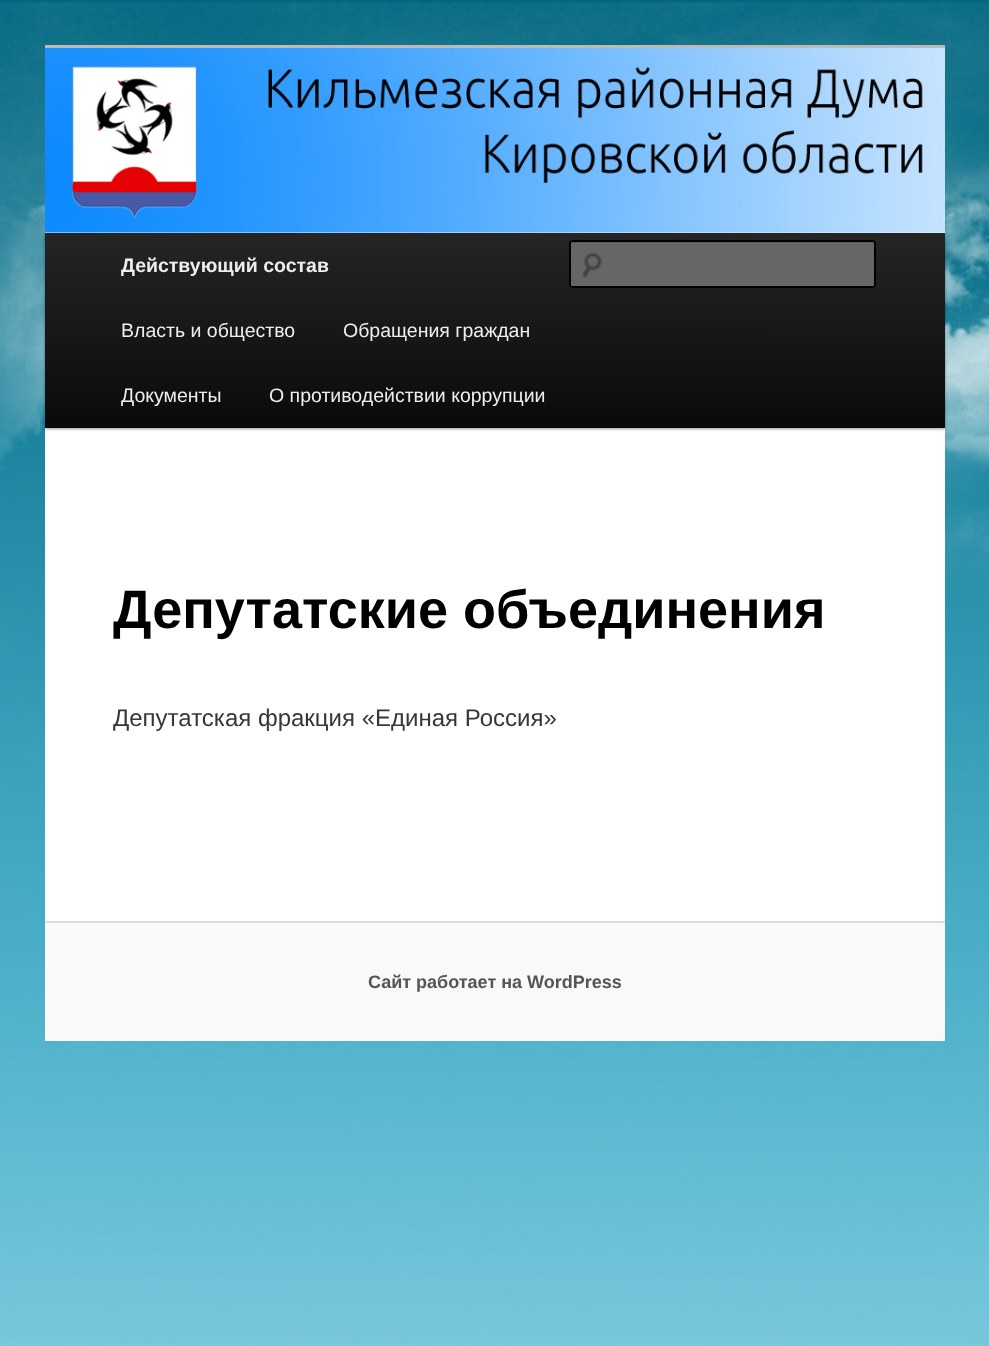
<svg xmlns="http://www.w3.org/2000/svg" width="989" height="1346">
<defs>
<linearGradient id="g1" gradientUnits="userSpaceOnUse" x1="495" y1="232" x2="495" y2="428"><stop offset="0" stop-color="#252525"/><stop offset="1" stop-color="#0a0a0a"/></linearGradient>
</defs>
<rect width="100%" height="100%" fill="#fff"/>
<image x="0" y="0" width="989" height="1346" href="media/1.png"/>
<rect x="45" y="232" width="900" height="689" fill="#fff"/>
<rect x="45" y="45" width="900" height="3" fill="#bbb"/>
<rect x="45" y="234" width="900" height="195" fill="#00000066" filter="blur(1.5px)"/>
<image x="45" y="48" width="900" height="185" href="media/2.png"/>
<rect x="45" y="233" width="900" height="195" fill="url(#g1)"/>
<text x="121" y="272" style="font-family:Liberation Sans;font-size:19.5px;font-weight:bold;fill:#eee">Действующий состав</text>
<text x="121" y="337" style="font-family:Liberation Sans;font-size:19.5px;fill:#eee">Власть и общество</text>
<text x="343" y="337" style="font-family:Liberation Sans;font-size:19.5px;fill:#eee">Обращения граждан</text>
<text x="121" y="402" style="font-family:Liberation Sans;font-size:19.5px;fill:#eee">Документы</text>
<text x="269" y="402" style="font-family:Liberation Sans;font-size:19.5px;fill:#eee">О противодействии коррупции</text>
<rect x="569" y="240" width="307" height="48" rx="3" fill="#666"/>
<image x="582" y="252" width="20" height="26" href="media/3.png"/>
<path d="M572 243h301c1 0 1 1 1 1v43c1 0 1-1 1-1v-42c0-1-1-2-1-2h-302c-1 0-2 1-2 2z" fill="#5c5c5c"/>
<rect x="570" y="241" width="305" height="46" rx="2" fill="none" stroke="#000" stroke-width="2"/>
<text x="113" y="628" style="font-family:Liberation Sans;font-size:54px;font-weight:bold;fill:#000">Депутатские объединения</text>
<text x="113" y="726" style="font-family:Liberation Sans;font-size:24px;fill:#373737">Депутатская фракция «Единая Россия»</text>
<rect x="45" y="923" width="900" height="118" fill="#f9f9f9"/>
<rect x="45" y="921" width="900" height="2" fill="#ddd"/>
<text x="368" y="988" style="font-family:Liberation Sans;font-size:18px;font-weight:bold;fill:#555">Сайт работает на WordPress</text>
</svg>
